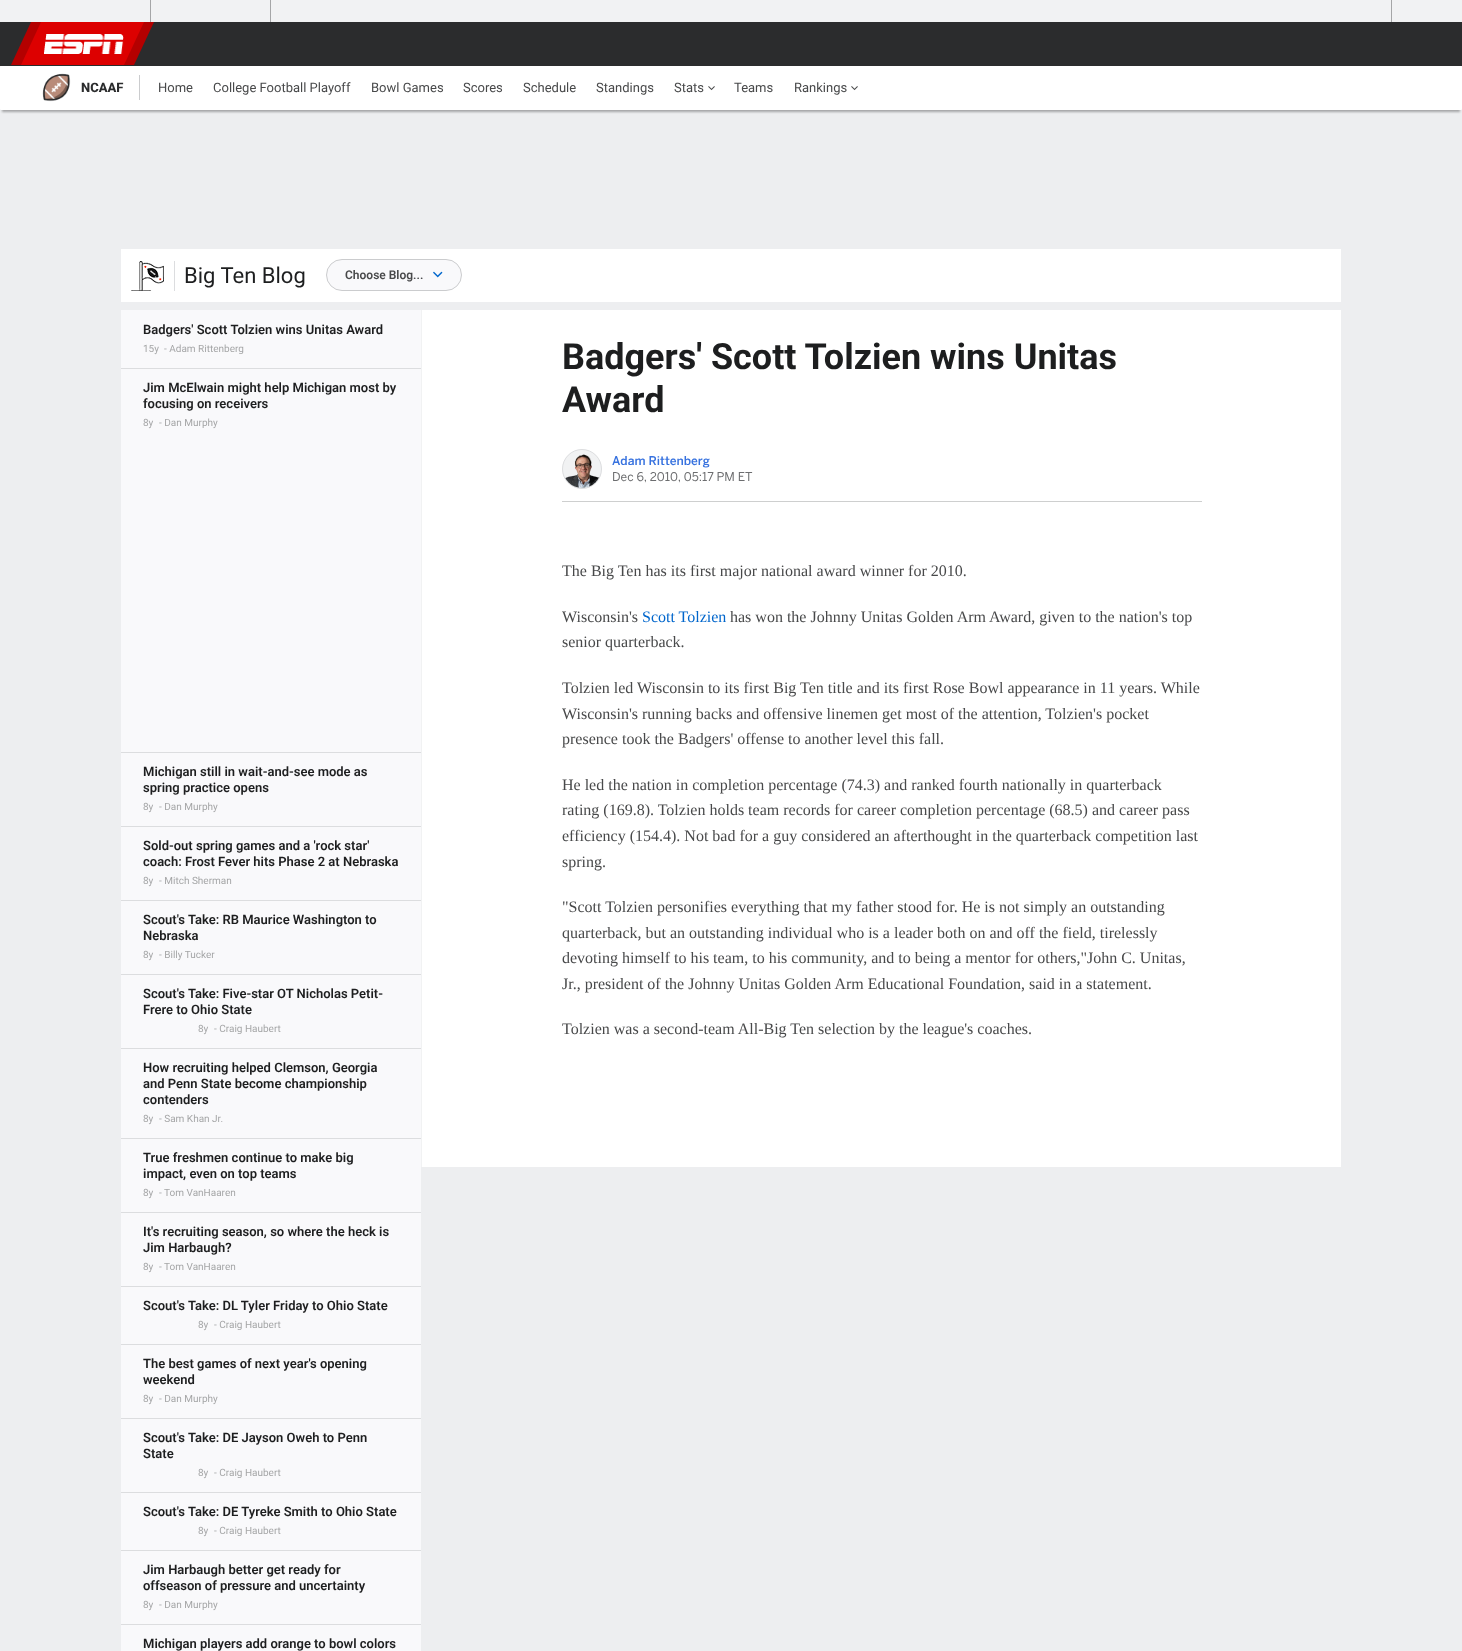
<svg xmlns="http://www.w3.org/2000/svg" width="1462" height="1651">
<rect width="100%" height="100%" fill="#edeef0"/>
<rect width="1462" height="22" fill="#f1f2f3"/>
<rect x="150" width="1" height="22" fill="#a5a6a7"/>
<rect x="270" width="1" height="22" fill="#a5a6a7"/>
<rect x="1391" width="1" height="22" fill="#a5a6a7"/>
<rect y="22" width="1462" height="44" fill="#2b2c2d"/>
<path d="M31 22h123l-20 43h-123z" fill="#b40000"/>
<path d="M41 22h103l-20 43h-103z" fill="#d00"/>
<image x="44" y="34" width="80" height="20" href="media/1.png"/>
<rect x="2" y="72" width="1458" height="40" fill="#0000004d" filter="blur(1px)"/>
<rect y="66" width="1462" height="44" rx="1" fill="#fff"/>
<image x="42" y="73" width="29" height="29" href="media/2.png"/>
<text x="81" y="92" style="font-family:Roboto;font-size:13px;font-weight:800;fill:#2b2c2d">NCAAF</text>
<rect x="139" y="75" width="1" height="25" fill="#cbccce"/>
<text x="158" y="92" style="font-family:Roboto;font-size:13px;fill:#48494a">Home</text>
<text x="213" y="92" style="font-family:Roboto;font-size:13px;fill:#48494a">College Football Playoff</text>
<text x="371" y="92" style="font-family:Roboto;font-size:13px;fill:#48494a">Bowl Games</text>
<text x="463" y="92" style="font-family:Roboto;font-size:13px;fill:#48494a">Scores</text>
<text x="523" y="92" style="font-family:Roboto;font-size:13px;fill:#48494a">Schedule</text>
<text x="596" y="92" style="font-family:Roboto;font-size:13px;fill:#48494a">Standings</text>
<text x="674" y="92" style="font-family:Roboto;font-size:13px;fill:#48494a">Stats</text>
<image x="708" y="86" width="7" height="5" href="media/3.png"/>
<text x="734" y="92" style="font-family:Roboto;font-size:13px;fill:#48494a">Teams</text>
<text x="794" y="92" style="font-family:Roboto;font-size:13px;fill:#48494a">Rankings</text>
<image x="851" y="86" width="7" height="5" href="media/3.png"/>
<rect x="121" y="249" width="1220" height="53" fill="#fff"/>
<image x="131" y="261" width="33" height="30" href="media/4.png"/>
<rect x="174" y="261" width="1" height="30" fill="#dcdddf"/>
<text x="184" y="283" style="font-family:Roboto;font-size:22px;fill:#1d1e1f">Big Ten Blog</text>
<rect x="326.5" y="259.5" width="135" height="31" rx="15.5" fill="#f9f9fb" stroke="#cbccce"/>
<text x="345" y="279" style="font-family:Roboto;font-size:12px;font-weight:600;fill:#48494a">Choose Blog...</text>
<image x="433" y="271" width="10" height="7" href="media/5.png"/>
<rect x="121" y="310" width="300" height="1341" fill="#f9f9fb"/>
<text x="143" y="334" style="font-family:Roboto;font-size:13px;font-weight:600;fill:#1d1e1f">Badgers' Scott Tolzien wins Unitas Award</text>
<text x="143" y="352" style="font-family:Roboto;font-size:10px;fill:#a5a6a7">15y</text>
<text x="164" y="352" style="font-family:Roboto;font-size:10px;fill:#a5a6a7">- Adam Rittenberg</text>
<rect x="121" y="368" width="300" height="1" fill="#dcdddf"/>
<text x="143" y="392" style="font-family:Roboto;font-size:13px;font-weight:600;fill:#1d1e1f">Jim McElwain might help Michigan most by</text>
<text x="143" y="408" style="font-family:Roboto;font-size:13px;font-weight:600;fill:#1d1e1f">focusing on receivers</text>
<text x="143" y="426" style="font-family:Roboto;font-size:10px;fill:#a5a6a7">8y</text>
<text x="159" y="426" style="font-family:Roboto;font-size:10px;fill:#a5a6a7">- Dan Murphy</text>
<rect x="121" y="752" width="300" height="1" fill="#dcdddf"/>
<text x="143" y="776" style="font-family:Roboto;font-size:13px;font-weight:600;fill:#1d1e1f">Michigan still in wait-and-see mode as</text>
<text x="143" y="792" style="font-family:Roboto;font-size:13px;font-weight:600;fill:#1d1e1f">spring practice opens</text>
<text x="143" y="810" style="font-family:Roboto;font-size:10px;fill:#a5a6a7">8y</text>
<text x="159" y="810" style="font-family:Roboto;font-size:10px;fill:#a5a6a7">- Dan Murphy</text>
<rect x="121" y="826" width="300" height="1" fill="#dcdddf"/>
<text x="143" y="850" style="font-family:Roboto;font-size:13px;font-weight:600;fill:#1d1e1f">Sold-out spring games and a 'rock star'</text>
<text x="143" y="866" style="font-family:Roboto;font-size:13px;font-weight:600;fill:#1d1e1f">coach: Frost Fever hits Phase 2 at Nebraska</text>
<text x="143" y="884" style="font-family:Roboto;font-size:10px;fill:#a5a6a7">8y</text>
<text x="159" y="884" style="font-family:Roboto;font-size:10px;fill:#a5a6a7">- Mitch Sherman</text>
<rect x="121" y="900" width="300" height="1" fill="#dcdddf"/>
<text x="143" y="924" style="font-family:Roboto;font-size:13px;font-weight:600;fill:#1d1e1f">Scout's Take: RB Maurice Washington to</text>
<text x="143" y="940" style="font-family:Roboto;font-size:13px;font-weight:600;fill:#1d1e1f">Nebraska</text>
<text x="143" y="958" style="font-family:Roboto;font-size:10px;fill:#a5a6a7">8y</text>
<text x="159" y="958" style="font-family:Roboto;font-size:10px;fill:#a5a6a7">- Billy Tucker</text>
<rect x="121" y="974" width="300" height="1" fill="#dcdddf"/>
<text x="143" y="998" style="font-family:Roboto;font-size:13px;font-weight:600;fill:#1d1e1f">Scout's Take: Five-star OT Nicholas Petit-</text>
<text x="143" y="1014" style="font-family:Roboto;font-size:13px;font-weight:600;fill:#1d1e1f">Frere to Ohio State</text>
<text x="198" y="1032" style="font-family:Roboto;font-size:10px;fill:#a5a6a7">8y</text>
<text x="214" y="1032" style="font-family:Roboto;font-size:10px;fill:#a5a6a7">- Craig Haubert</text>
<rect x="121" y="1048" width="300" height="1" fill="#dcdddf"/>
<text x="143" y="1072" style="font-family:Roboto;font-size:13px;font-weight:600;fill:#1d1e1f">How recruiting helped Clemson, Georgia</text>
<text x="143" y="1088" style="font-family:Roboto;font-size:13px;font-weight:600;fill:#1d1e1f">and Penn State become championship</text>
<text x="143" y="1104" style="font-family:Roboto;font-size:13px;font-weight:600;fill:#1d1e1f">contenders</text>
<text x="143" y="1122" style="font-family:Roboto;font-size:10px;fill:#a5a6a7">8y</text>
<text x="159" y="1122" style="font-family:Roboto;font-size:10px;fill:#a5a6a7">- Sam Khan Jr.</text>
<rect x="121" y="1138" width="300" height="1" fill="#dcdddf"/>
<text x="143" y="1162" style="font-family:Roboto;font-size:13px;font-weight:600;fill:#1d1e1f">True freshmen continue to make big</text>
<text x="143" y="1178" style="font-family:Roboto;font-size:13px;font-weight:600;fill:#1d1e1f">impact, even on top teams</text>
<text x="143" y="1196" style="font-family:Roboto;font-size:10px;fill:#a5a6a7">8y</text>
<text x="159" y="1196" style="font-family:Roboto;font-size:10px;fill:#a5a6a7">- Tom VanHaaren</text>
<rect x="121" y="1212" width="300" height="1" fill="#dcdddf"/>
<text x="143" y="1236" style="font-family:Roboto;font-size:13px;font-weight:600;fill:#1d1e1f">It's recruiting season, so where the heck is</text>
<text x="143" y="1252" style="font-family:Roboto;font-size:13px;font-weight:600;fill:#1d1e1f">Jim Harbaugh?</text>
<text x="143" y="1270" style="font-family:Roboto;font-size:10px;fill:#a5a6a7">8y</text>
<text x="159" y="1270" style="font-family:Roboto;font-size:10px;fill:#a5a6a7">- Tom VanHaaren</text>
<rect x="121" y="1286" width="300" height="1" fill="#dcdddf"/>
<text x="143" y="1310" style="font-family:Roboto;font-size:13px;font-weight:600;fill:#1d1e1f">Scout's Take: DL Tyler Friday to Ohio State</text>
<text x="198" y="1328" style="font-family:Roboto;font-size:10px;fill:#a5a6a7">8y</text>
<text x="214" y="1328" style="font-family:Roboto;font-size:10px;fill:#a5a6a7">- Craig Haubert</text>
<rect x="121" y="1344" width="300" height="1" fill="#dcdddf"/>
<text x="143" y="1368" style="font-family:Roboto;font-size:13px;font-weight:600;fill:#1d1e1f">The best games of next year's opening</text>
<text x="143" y="1384" style="font-family:Roboto;font-size:13px;font-weight:600;fill:#1d1e1f">weekend</text>
<text x="143" y="1402" style="font-family:Roboto;font-size:10px;fill:#a5a6a7">8y</text>
<text x="159" y="1402" style="font-family:Roboto;font-size:10px;fill:#a5a6a7">- Dan Murphy</text>
<rect x="121" y="1418" width="300" height="1" fill="#dcdddf"/>
<text x="143" y="1442" style="font-family:Roboto;font-size:13px;font-weight:600;fill:#1d1e1f">Scout's Take: DE Jayson Oweh to Penn</text>
<text x="143" y="1458" style="font-family:Roboto;font-size:13px;font-weight:600;fill:#1d1e1f">State</text>
<text x="198" y="1476" style="font-family:Roboto;font-size:10px;fill:#a5a6a7">8y</text>
<text x="214" y="1476" style="font-family:Roboto;font-size:10px;fill:#a5a6a7">- Craig Haubert</text>
<rect x="121" y="1492" width="300" height="1" fill="#dcdddf"/>
<text x="143" y="1516" style="font-family:Roboto;font-size:13px;font-weight:600;fill:#1d1e1f">Scout's Take: DE Tyreke Smith to Ohio State</text>
<text x="198" y="1534" style="font-family:Roboto;font-size:10px;fill:#a5a6a7">8y</text>
<text x="214" y="1534" style="font-family:Roboto;font-size:10px;fill:#a5a6a7">- Craig Haubert</text>
<rect x="121" y="1550" width="300" height="1" fill="#dcdddf"/>
<text x="143" y="1574" style="font-family:Roboto;font-size:13px;font-weight:600;fill:#1d1e1f">Jim Harbaugh better get ready for</text>
<text x="143" y="1590" style="font-family:Roboto;font-size:13px;font-weight:600;fill:#1d1e1f">offseason of pressure and uncertainty</text>
<text x="143" y="1608" style="font-family:Roboto;font-size:10px;fill:#a5a6a7">8y</text>
<text x="159" y="1608" style="font-family:Roboto;font-size:10px;fill:#a5a6a7">- Dan Murphy</text>
<rect x="121" y="1624" width="300" height="1" fill="#dcdddf"/>
<text x="143" y="1648" style="font-family:Roboto;font-size:13px;font-weight:600;fill:#1d1e1f">Michigan players add orange to bowl colors</text>
<rect x="421" y="310" width="1" height="857" fill="#f1f2f3"/>
<rect x="422" y="310" width="919" height="857" fill="#fff"/>
<text x="562" y="369" style="font-family:Roboto;font-size:36px;font-weight:bold;fill:#1d1e1f">Badgers' Scott Tolzien wins Unitas</text>
<text x="562" y="412" style="font-family:Roboto;font-size:36px;font-weight:bold;fill:#1d1e1f">Award</text>
<rect x="562" y="501" width="640" height="1" fill="#cecfcf"/>
<circle cx="582" cy="469" r="19.5" fill="#f1f2f3" stroke="#dcdddf"/>
<image x="565" y="454" width="34" height="34" href="media/6.png"/>
<text x="612" y="465" style="font-family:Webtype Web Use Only;font-size:12px;font-weight:500;fill:#3772df">Adam Rittenberg</text>
<text x="612" y="481" style="font-family:Webtype Web Use Only;font-size:12px;fill:#6c6d6f">Dec 6, 2010, 05:17 PM ET</text>
<text x="562" y="576" style="font-family:Liberation Serif;font-size:16px;fill:#48494a">The Big Ten has its first major national award winner for 2010.</text>
<text x="562" y="622" style="font-family:Liberation Serif;font-size:16px;fill:#48494a">Wisconsin's</text>
<text x="642" y="622" style="font-family:Liberation Serif;font-size:16px;fill:#06c">Scott Tolzien</text>
<text x="730" y="622" style="font-family:Liberation Serif;font-size:16px;fill:#48494a">has won the Johnny Unitas Golden Arm Award, given to the nation's top</text>
<text x="562" y="647" style="font-family:Liberation Serif;font-size:16px;fill:#48494a">senior quarterback.</text>
<text x="562" y="693" style="font-family:Liberation Serif;font-size:16px;fill:#48494a">Tolzien led Wisconsin to its first Big Ten title and its first Rose Bowl appearance in 11 years. While</text>
<text x="562" y="719" style="font-family:Liberation Serif;font-size:16px;fill:#48494a">Wisconsin's running backs and offensive linemen get most of the attention, Tolzien's pocket</text>
<text x="562" y="744" style="font-family:Liberation Serif;font-size:16px;fill:#48494a">presence took the Badgers' offense to another level this fall.</text>
<text x="562" y="790" style="font-family:Liberation Serif;font-size:16px;fill:#48494a">He led the nation in completion percentage (74.3) and ranked fourth nationally in quarterback</text>
<text x="562" y="815" style="font-family:Liberation Serif;font-size:16px;fill:#48494a">rating (169.8). Tolzien holds team records for career completion percentage (68.5) and career pass</text>
<text x="562" y="841" style="font-family:Liberation Serif;font-size:16px;fill:#48494a">efficiency (154.4). Not bad for a guy considered an afterthought in the quarterback competition last</text>
<text x="562" y="867" style="font-family:Liberation Serif;font-size:16px;fill:#48494a">spring.</text>
<text x="562" y="912" style="font-family:Liberation Serif;font-size:16px;fill:#48494a">"Scott Tolzien personifies everything that my father stood for. He is not simply an outstanding</text>
<text x="562" y="938" style="font-family:Liberation Serif;font-size:16px;fill:#48494a">quarterback, but an outstanding individual who is a leader both on and off the field, tirelessly</text>
<text x="562" y="963" style="font-family:Liberation Serif;font-size:16px;fill:#48494a">devoting himself to his team, to his community, and to being a mentor for others,"John C. Unitas,</text>
<text x="562" y="989" style="font-family:Liberation Serif;font-size:16px;fill:#48494a">Jr., president of the Johnny Unitas Golden Arm Educational Foundation, said in a statement.</text>
<text x="562" y="1034" style="font-family:Liberation Serif;font-size:16px;fill:#48494a">Tolzien was a second-team All-Big Ten selection by the league's coaches.</text>
</svg>
